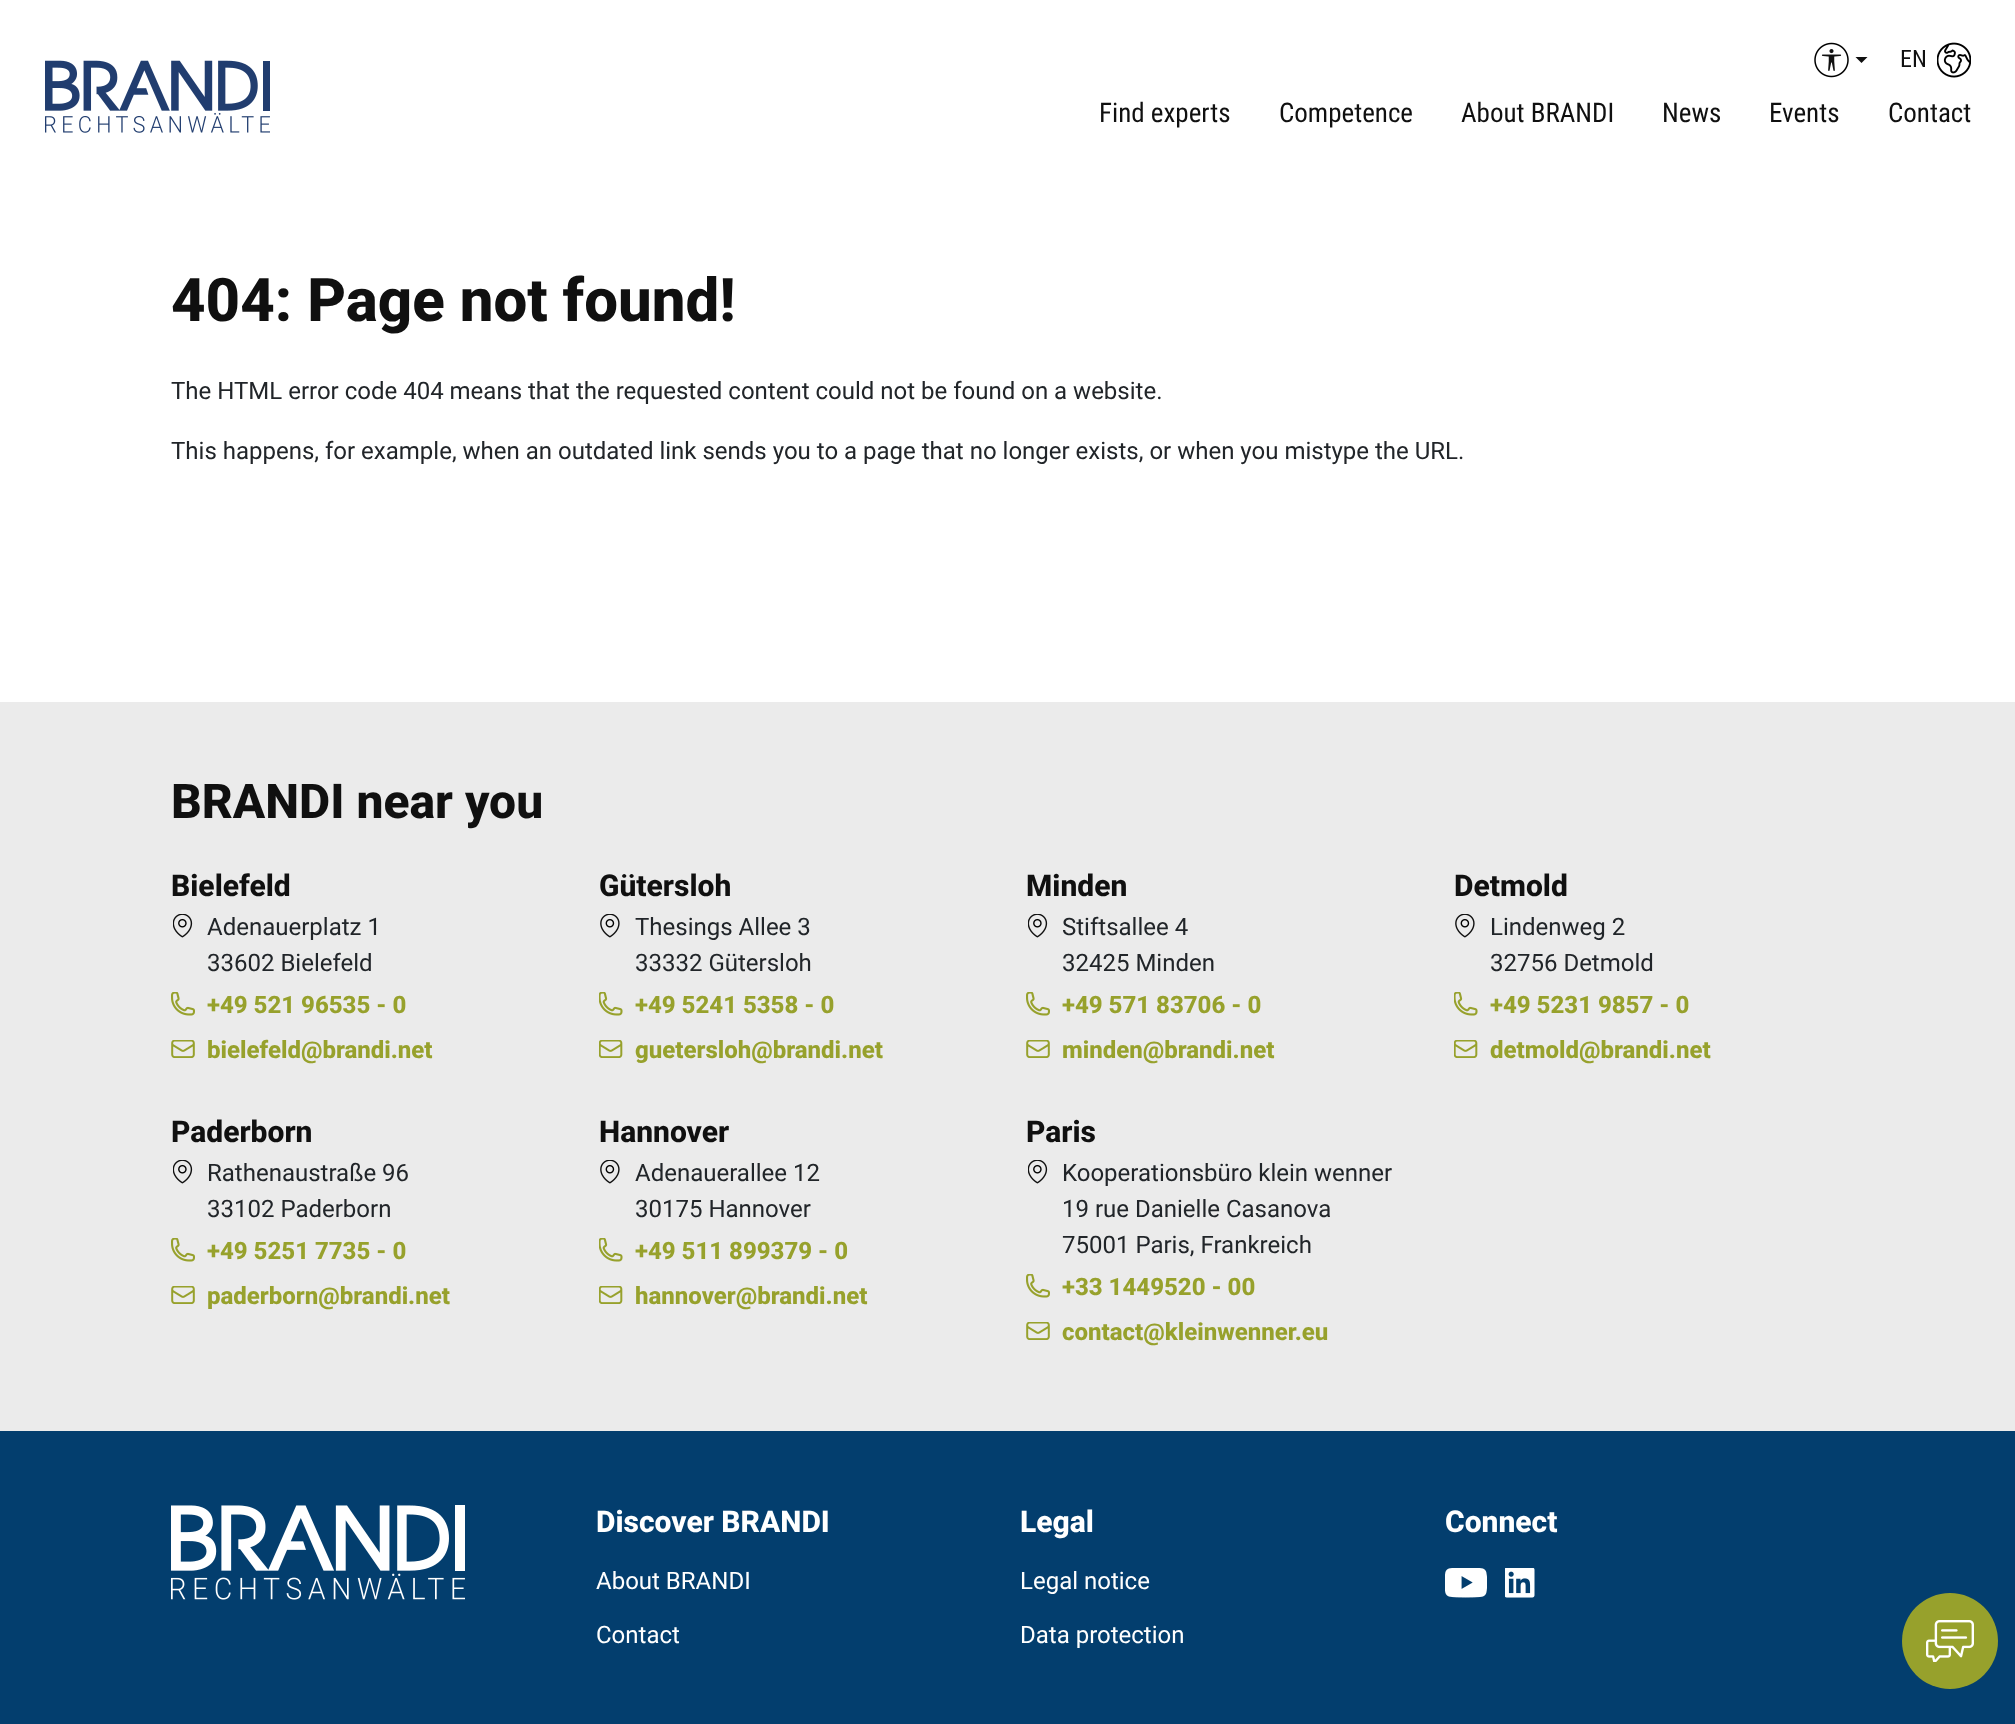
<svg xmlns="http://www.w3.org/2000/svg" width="2015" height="1724">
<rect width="100%" height="100%" fill="#fff"/>
<image x="1814" y="42" width="35" height="36" href="media/1.png"/>
<path d="M1855.5 57h12l-6 6z" fill="#101010"/>
<text x="1900" y="67" style="font-family:Roboto Condensed;font-size:24px;fill:#101010">EN</text>
<image x="1937" y="42" width="34" height="36" href="media/2.png"/>
<image x="45" y="60" width="225" height="73" href="media/3.png"/>
<text x="1099" y="122" style="font-family:Roboto Condensed;font-size:27px;fill:#101010">Find experts</text>
<text x="1279" y="122" style="font-family:Roboto Condensed;font-size:27px;fill:#101010">Competence</text>
<text x="1461" y="122" style="font-family:Roboto Condensed;font-size:27px;fill:#101010">About BRANDI</text>
<text x="1662" y="122" style="font-family:Roboto Condensed;font-size:27px;fill:#101010">News</text>
<text x="1769" y="122" style="font-family:Roboto Condensed;font-size:27px;fill:#101010">Events</text>
<text x="1888" y="122" style="font-family:Roboto Condensed;font-size:27px;fill:#101010">Contact</text>
<text x="171" y="321" style="font-family:Roboto;font-size:60px;font-weight:800;fill:#101010">404: Page not found!</text>
<text x="171" y="399" style="font-family:Roboto;font-size:24px;fill:#212529">The HTML error code 404 means that the requested content could not be found on a website.</text>
<text x="171" y="459" style="font-family:Roboto;font-size:24px;fill:#212529">This happens, for example, when an outdated link sends you to a page that no longer exists, or when you mistype the URL.</text>
<rect y="702" width="2015" height="729" fill="#ebebeb"/>
<text x="171" y="818" style="font-family:Roboto;font-size:48px;font-weight:800;fill:#101010">BRANDI near you</text>
<text x="171" y="896" style="font-family:Roboto;font-size:30px;font-weight:800;fill:#101010">Bielefeld</text>
<image x="173" y="914" width="20" height="24" href="media/4.png"/>
<text x="207" y="935" style="font-family:Roboto;font-size:24px;fill:#212529">Adenauerplatz 1</text>
<text x="207" y="971" style="font-family:Roboto;font-size:24px;fill:#212529">33602 Bielefeld</text>
<image x="171" y="992" width="24" height="24" href="media/5.png"/>
<text x="207" y="1013" style="font-family:Roboto;font-size:24px;font-weight:800;fill:#97a12c">+49 521 96535 - 0</text>
<image x="171" y="1040" width="24" height="18" href="media/6.png"/>
<text x="207" y="1058" style="font-family:Roboto;font-size:24px;font-weight:800;fill:#97a12c">bielefeld@brandi.net</text>
<text x="599" y="896" style="font-family:Roboto;font-size:30px;font-weight:800;fill:#101010">Gütersloh</text>
<image x="600" y="914" width="20" height="24" href="media/7.png"/>
<text x="635" y="935" style="font-family:Roboto;font-size:24px;fill:#212529">Thesings Allee 3</text>
<text x="635" y="971" style="font-family:Roboto;font-size:24px;fill:#212529">33332 Gütersloh</text>
<image x="599" y="992" width="24" height="24" href="media/8.png"/>
<text x="635" y="1013" style="font-family:Roboto;font-size:24px;font-weight:800;fill:#97a12c">+49 5241 5358 - 0</text>
<image x="599" y="1040" width="24" height="18" href="media/9.png"/>
<text x="635" y="1058" style="font-family:Roboto;font-size:24px;font-weight:800;fill:#97a12c">guetersloh@brandi.net</text>
<text x="1026" y="896" style="font-family:Roboto;font-size:30px;font-weight:800;fill:#101010">Minden</text>
<image x="1028" y="914" width="20" height="24" href="media/4.png"/>
<text x="1062" y="935" style="font-family:Roboto;font-size:24px;fill:#212529">Stiftsallee 4</text>
<text x="1062" y="971" style="font-family:Roboto;font-size:24px;fill:#212529">32425 Minden</text>
<image x="1026" y="992" width="24" height="24" href="media/5.png"/>
<text x="1062" y="1013" style="font-family:Roboto;font-size:24px;font-weight:800;fill:#97a12c">+49 571 83706 - 0</text>
<image x="1026" y="1040" width="24" height="18" href="media/6.png"/>
<text x="1062" y="1058" style="font-family:Roboto;font-size:24px;font-weight:800;fill:#97a12c">minden@brandi.net</text>
<text x="1454" y="896" style="font-family:Roboto;font-size:30px;font-weight:800;fill:#101010">Detmold</text>
<image x="1455" y="914" width="20" height="24" href="media/7.png"/>
<text x="1490" y="935" style="font-family:Roboto;font-size:24px;fill:#212529">Lindenweg 2</text>
<text x="1490" y="971" style="font-family:Roboto;font-size:24px;fill:#212529">32756 Detmold</text>
<image x="1454" y="992" width="24" height="24" href="media/8.png"/>
<text x="1490" y="1013" style="font-family:Roboto;font-size:24px;font-weight:800;fill:#97a12c">+49 5231 9857 - 0</text>
<image x="1454" y="1040" width="24" height="18" href="media/9.png"/>
<text x="1490" y="1058" style="font-family:Roboto;font-size:24px;font-weight:800;fill:#97a12c">detmold@brandi.net</text>
<text x="171" y="1142" style="font-family:Roboto;font-size:30px;font-weight:800;fill:#101010">Paderborn</text>
<image x="173" y="1160" width="20" height="24" href="media/4.png"/>
<text x="207" y="1181" style="font-family:Roboto;font-size:24px;fill:#212529">Rathenaustraße 96</text>
<text x="207" y="1217" style="font-family:Roboto;font-size:24px;fill:#212529">33102 Paderborn</text>
<image x="171" y="1238" width="24" height="24" href="media/5.png"/>
<text x="207" y="1259" style="font-family:Roboto;font-size:24px;font-weight:800;fill:#97a12c">+49 5251 7735 - 0</text>
<image x="171" y="1286" width="24" height="18" href="media/6.png"/>
<text x="207" y="1304" style="font-family:Roboto;font-size:24px;font-weight:800;fill:#97a12c">paderborn@brandi.net</text>
<text x="599" y="1142" style="font-family:Roboto;font-size:30px;font-weight:800;fill:#101010">Hannover</text>
<image x="600" y="1160" width="20" height="24" href="media/7.png"/>
<text x="635" y="1181" style="font-family:Roboto;font-size:24px;fill:#212529">Adenauerallee 12</text>
<text x="635" y="1217" style="font-family:Roboto;font-size:24px;fill:#212529">30175 Hannover</text>
<image x="599" y="1238" width="24" height="24" href="media/8.png"/>
<text x="635" y="1259" style="font-family:Roboto;font-size:24px;font-weight:800;fill:#97a12c">+49 511 899379 - 0</text>
<image x="599" y="1286" width="24" height="18" href="media/9.png"/>
<text x="635" y="1304" style="font-family:Roboto;font-size:24px;font-weight:800;fill:#97a12c">hannover@brandi.net</text>
<text x="1026" y="1142" style="font-family:Roboto;font-size:30px;font-weight:800;fill:#101010">Paris</text>
<image x="1028" y="1160" width="20" height="24" href="media/4.png"/>
<text x="1062" y="1181" style="font-family:Roboto;font-size:24px;fill:#212529">Kooperationsbüro klein wenner</text>
<text x="1062" y="1217" style="font-family:Roboto;font-size:24px;fill:#212529">19 rue Danielle Casanova</text>
<text x="1062" y="1253" style="font-family:Roboto;font-size:24px;fill:#212529">75001 Paris, Frankreich</text>
<image x="1026" y="1274" width="24" height="24" href="media/5.png"/>
<text x="1062" y="1295" style="font-family:Roboto;font-size:24px;font-weight:800;fill:#97a12c">+33 1449520 - 00</text>
<image x="1026" y="1322" width="24" height="18" href="media/6.png"/>
<text x="1062" y="1340" style="font-family:Roboto;font-size:24px;font-weight:800;fill:#97a12c">contact@kleinwenner.eu</text>
<rect y="1431" width="2015" height="293" fill="#033e6e"/>
<image x="171" y="1505" width="294" height="95" href="media/10.png"/>
<text x="596" y="1532" style="font-family:Roboto;font-size:30px;font-weight:800;fill:#fff">Discover BRANDI</text>
<text x="596" y="1589" style="font-family:Roboto;font-size:24px;fill:#fff">About BRANDI</text>
<text x="596" y="1643" style="font-family:Roboto;font-size:24px;fill:#fff">Contact</text>
<text x="1020" y="1532" style="font-family:Roboto;font-size:30px;font-weight:800;fill:#fff">Legal</text>
<text x="1020" y="1589" style="font-family:Roboto;font-size:24px;fill:#fff">Legal notice</text>
<text x="1020" y="1643" style="font-family:Roboto;font-size:24px;fill:#fff">Data protection</text>
<text x="1445" y="1532" style="font-family:Roboto;font-size:30px;font-weight:800;fill:#fff">Connect</text>
<image x="1445" y="1568" width="42" height="30" href="media/11.png"/>
<image x="1505" y="1568" width="30" height="30" href="media/12.png"/>
<circle cx="1950" cy="1641" r="48" fill="#97a12c"/>
<image x="1926" y="1620" width="48" height="42" href="media/13.png"/>
</svg>
